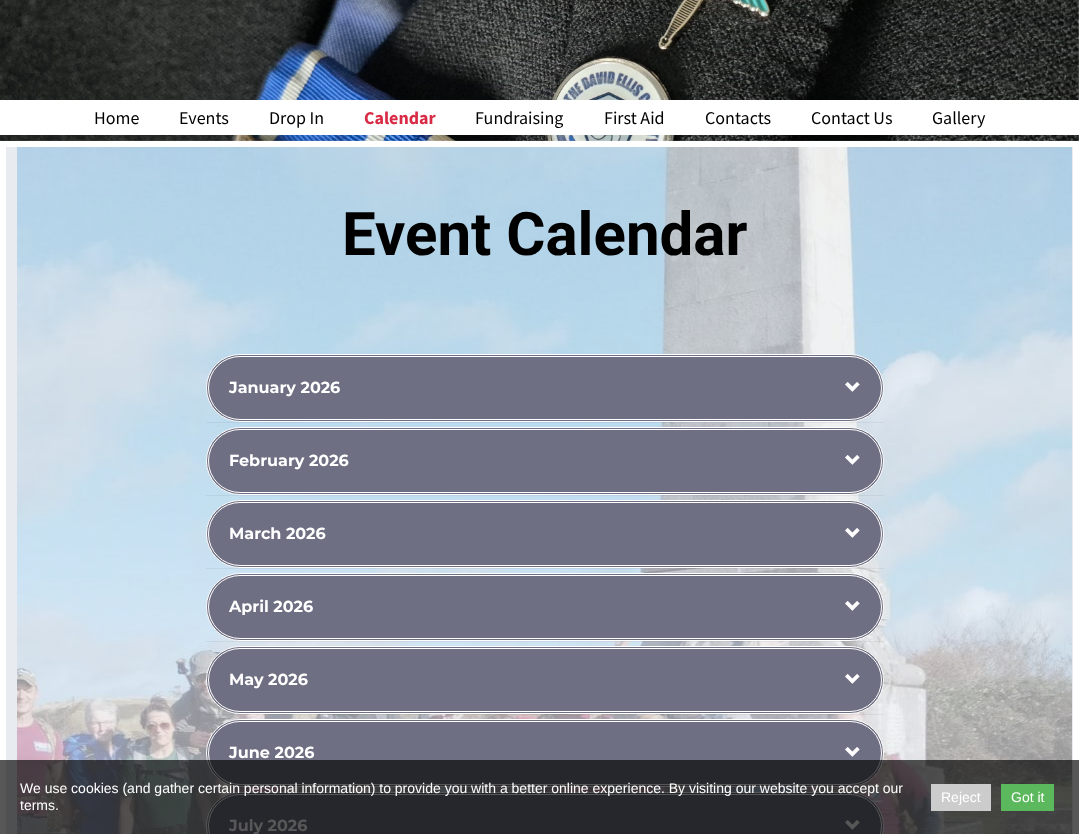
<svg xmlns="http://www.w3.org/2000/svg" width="1079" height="834">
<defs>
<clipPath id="clip1"><rect x="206" y="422" width="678" height="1"/></clipPath>
<clipPath id="clip2"><rect x="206" y="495" width="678" height="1"/></clipPath>
<clipPath id="clip3"><rect x="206" y="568" width="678" height="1"/></clipPath>
<clipPath id="clip4"><rect x="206" y="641" width="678" height="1"/></clipPath>
<clipPath id="clip5"><rect x="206" y="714" width="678" height="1"/></clipPath>
<clipPath id="clip6"><rect x="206" y="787" width="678" height="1"/></clipPath>
</defs>
<rect width="100%" height="100%" fill="#fff"/>
<image x="0" y="0" width="1079" height="141" href="media/1.png"/>
<rect y="100" width="1079" height="35" fill="#fff"/>
<text x="94" y="124" style="font-family:Source Sans Pro;font-size:18px;fill:#000">Home</text>
<text x="179" y="124" style="font-family:Source Sans Pro;font-size:18px;fill:#000">Events</text>
<text x="269" y="124" style="font-family:Source Sans Pro;font-size:18px;fill:#000">Drop In</text>
<text x="364" y="124" style="font-family:Source Sans Pro;font-size:18px;font-weight:bold;fill:#d92b45">Calendar</text>
<text x="475" y="124" style="font-family:Source Sans Pro;font-size:18px;fill:#000">Fundraising</text>
<text x="604" y="124" style="font-family:Source Sans Pro;font-size:18px;fill:#000">First Aid</text>
<text x="705" y="124" style="font-family:Source Sans Pro;font-size:18px;fill:#000">Contacts</text>
<text x="811" y="124" style="font-family:Source Sans Pro;font-size:18px;fill:#000">Contact Us</text>
<text x="932" y="124" style="font-family:Source Sans Pro;font-size:18px;fill:#000">Gallery</text>
<rect x="6" y="147" width="1067" height="687" fill="#e8ebf0"/>
<image x="17" y="147" width="1055" height="687" href="media/2.png"/>
<text x="342" y="255" style="font-family:Roboto;font-size:60px;font-weight:bold;fill:#000">Event Calendar</text>
<g clip-path="url(#clip1)">
<rect x="206" y="355" width="678" height="68" fill="#0000000d" filter="blur(0.5px)"/>
</g>
<rect x="206.5" y="354.5" width="677" height="67" rx="33.5" fill="#6f6f83" stroke="#fff"/>
<rect x="208.5" y="356.5" width="673" height="63" rx="31.5" fill="none" stroke="#fff"/>
<text x="229" y="393" style="font-family:Montserrat;font-size:16px;font-weight:bold;fill:#fff">January 2026</text>
<image x="845" y="382" width="15" height="10" href="media/3.png"/>
<g clip-path="url(#clip2)">
<rect x="206" y="428" width="678" height="68" fill="#0000000d" filter="blur(0.5px)"/>
</g>
<rect x="206.5" y="427.5" width="677" height="67" rx="33.5" fill="#6f6f83" stroke="#fff"/>
<rect x="208.5" y="429.5" width="673" height="63" rx="31.5" fill="none" stroke="#fff"/>
<text x="229" y="466" style="font-family:Montserrat;font-size:16px;font-weight:bold;fill:#fff">February 2026</text>
<image x="845" y="455" width="15" height="10" href="media/3.png"/>
<g clip-path="url(#clip3)">
<rect x="206" y="501" width="678" height="68" fill="#0000000d" filter="blur(0.5px)"/>
</g>
<rect x="206.5" y="500.5" width="677" height="67" rx="33.5" fill="#6f6f83" stroke="#fff"/>
<rect x="208.5" y="502.5" width="673" height="63" rx="31.5" fill="none" stroke="#fff"/>
<text x="229" y="539" style="font-family:Montserrat;font-size:16px;font-weight:bold;fill:#fff">March 2026</text>
<image x="845" y="528" width="15" height="10" href="media/3.png"/>
<g clip-path="url(#clip4)">
<rect x="206" y="574" width="678" height="68" fill="#0000000d" filter="blur(0.5px)"/>
</g>
<rect x="206.5" y="573.5" width="677" height="67" rx="33.5" fill="#6f6f83" stroke="#fff"/>
<rect x="208.5" y="575.5" width="673" height="63" rx="31.5" fill="none" stroke="#fff"/>
<text x="229" y="612" style="font-family:Montserrat;font-size:16px;font-weight:bold;fill:#fff">April 2026</text>
<image x="845" y="601" width="15" height="10" href="media/3.png"/>
<g clip-path="url(#clip5)">
<rect x="206" y="647" width="678" height="68" fill="#0000000d" filter="blur(0.5px)"/>
</g>
<rect x="206.5" y="646.5" width="677" height="67" rx="33.5" fill="#6f6f83" stroke="#fff"/>
<rect x="208.5" y="648.5" width="673" height="63" rx="31.5" fill="none" stroke="#fff"/>
<text x="229" y="685" style="font-family:Montserrat;font-size:16px;font-weight:bold;fill:#fff">May 2026</text>
<image x="845" y="674" width="15" height="10" href="media/3.png"/>
<g clip-path="url(#clip6)">
<rect x="206" y="720" width="678" height="68" fill="#0000000d" filter="blur(0.5px)"/>
</g>
<rect x="206.5" y="719.5" width="677" height="67" rx="33.5" fill="#6f6f83" stroke="#fff"/>
<rect x="208.5" y="721.5" width="673" height="63" rx="31.5" fill="none" stroke="#fff"/>
<text x="229" y="758" style="font-family:Montserrat;font-size:16px;font-weight:bold;fill:#fff">June 2026</text>
<image x="845" y="747" width="15" height="10" href="media/3.png"/>
<rect x="206.5" y="792.5" width="677" height="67" rx="33.5" fill="#6f6f83" stroke="#fff"/>
<rect x="208.5" y="794.5" width="673" height="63" rx="31.5" fill="none" stroke="#fff"/>
<text x="229" y="831" style="font-family:Montserrat;font-size:16px;font-weight:bold;fill:#fff">July 2026</text>
<image x="845" y="820" width="15" height="10" href="media/3.png"/>
<rect y="760" width="1079" height="74" fill="#000000a8"/>
<text x="20" y="793" style="font-family:Liberation Sans;font-size:14px;fill:#fff">We use cookies (and gather certain personal information) to provide you with a better online experience. By visiting our website you accept our</text>
<text x="20" y="810" style="font-family:Liberation Sans;font-size:14px;fill:#fff">terms.</text>
<rect x="931" y="784" width="60" height="27" fill="#ccc"/>
<text x="941" y="802" style="font-family:Liberation Sans;font-size:14px;fill:#fff">Reject</text>
<rect x="1001" y="784" width="53" height="27" fill="#5cb85c"/>
<text x="1011" y="802" style="font-family:Liberation Sans;font-size:14px;fill:#fff">Got it</text>
</svg>
